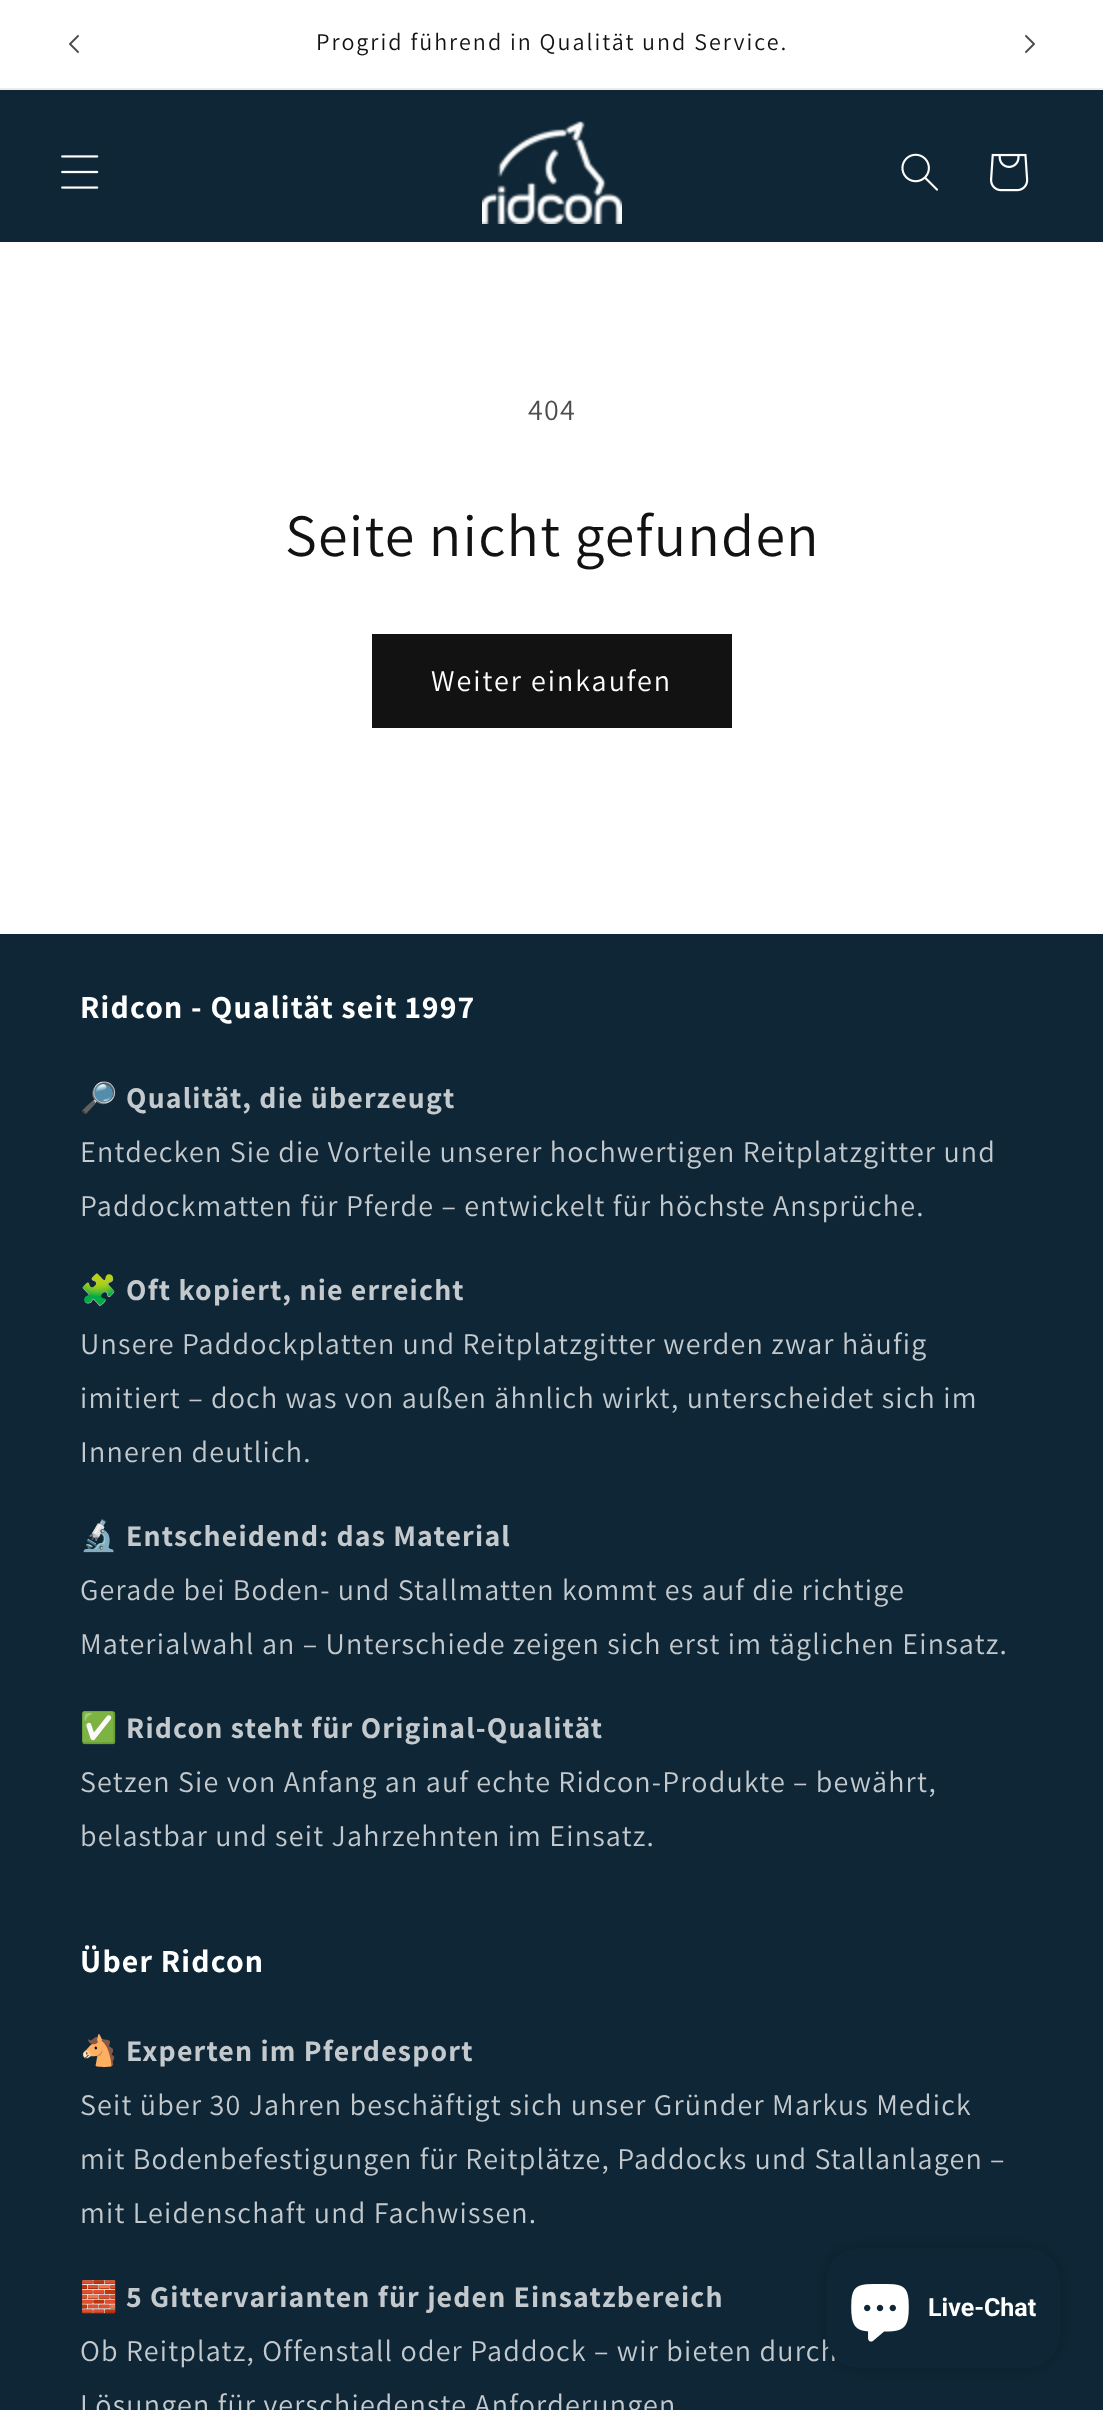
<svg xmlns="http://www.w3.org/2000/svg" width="1103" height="2410">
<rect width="100%" height="100%" fill="#fff"/>
<rect y="88" width="1103" height="2" fill="#ececec"/>
<image x="69" y="35" width="10" height="18" href="media/1.png"/>
<text x="316" y="50" style="font-family:Assistant;font-size:24px;letter-spacing:2px;fill:#121212">Progrid führend in Qualität und Service.</text>
<image x="1025" y="35" width="10" height="18" href="media/2.png"/>
<rect y="90" width="1103" height="152" fill="#0e2635"/>
<image x="61" y="155" width="38" height="34" href="media/3.png"/>
<image x="482" y="121" width="140" height="103" href="media/4.png"/>
<image x="901" y="153" width="37" height="38" href="media/5.png"/>
<image x="990" y="153" width="39" height="39" href="media/6.png"/>
<text x="528" y="420" style="font-family:Assistant;font-size:30px;letter-spacing:1.2px;fill:#4d4d4d">404</text>
<text x="285" y="556" style="font-family:Assistant;font-size:60px;letter-spacing:1.2px;fill:#121212">Seite nicht gefunden</text>
<rect x="372" y="634" width="360" height="94" fill="#121212"/>
<text x="431" y="691" style="font-family:Assistant;font-size:30px;letter-spacing:2px;fill:#fff">Weiter einkaufen</text>
<rect y="934" width="1103" height="1476" fill="#0e2635"/>
<text x="80" y="1018" style="font-family:Assistant;font-size:32px;font-weight:bold;letter-spacing:1.2px;fill:#fff">Ridcon - Qualität seit 1997</text>
<text x="80" y="1108" style="font-family:Noto Color Emoji;font-size:30px;letter-spacing:1.2px;fill:#c3c9cd">🔎</text>
<text x="126" y="1108" style="font-family:Assistant;font-size:30px;font-weight:bold;letter-spacing:1.2px;fill:#c3c9cd">Qualität, die überzeugt</text>
<text x="80" y="1162" style="font-family:Assistant;font-size:30px;letter-spacing:1.2px;fill:#c3c9cd">Entdecken Sie die Vorteile unserer hochwertigen Reitplatzgitter und</text>
<text x="80" y="1216" style="font-family:Assistant;font-size:30px;letter-spacing:1.2px;fill:#c3c9cd">Paddockmatten für Pferde – entwickelt für höchste Ansprüche.</text>
<text x="80" y="1300" style="font-family:Noto Color Emoji;font-size:30px;letter-spacing:1.2px;fill:#c3c9cd">🧩</text>
<text x="126" y="1300" style="font-family:Assistant;font-size:30px;font-weight:bold;letter-spacing:1.2px;fill:#c3c9cd">Oft kopiert, nie erreicht</text>
<text x="80" y="1354" style="font-family:Assistant;font-size:30px;letter-spacing:1.2px;fill:#c3c9cd">Unsere Paddockplatten und Reitplatzgitter werden zwar häufig</text>
<text x="80" y="1408" style="font-family:Assistant;font-size:30px;letter-spacing:1.2px;fill:#c3c9cd">imitiert – doch was von außen ähnlich wirkt, unterscheidet sich im</text>
<text x="80" y="1462" style="font-family:Assistant;font-size:30px;letter-spacing:1.2px;fill:#c3c9cd">Inneren deutlich.</text>
<text x="80" y="1546" style="font-family:Noto Color Emoji;font-size:30px;letter-spacing:1.2px;fill:#c3c9cd">🔬</text>
<text x="126" y="1546" style="font-family:Assistant;font-size:30px;font-weight:bold;letter-spacing:1.2px;fill:#c3c9cd">Entscheidend: das Material</text>
<text x="80" y="1600" style="font-family:Assistant;font-size:30px;letter-spacing:1.2px;fill:#c3c9cd">Gerade bei Boden- und Stallmatten kommt es auf die richtige</text>
<text x="80" y="1654" style="font-family:Assistant;font-size:30px;letter-spacing:1.2px;fill:#c3c9cd">Materialwahl an – Unterschiede zeigen sich erst im täglichen Einsatz.</text>
<text x="80" y="1738" style="font-family:Noto Color Emoji;font-size:30px;letter-spacing:1.2px;fill:#c3c9cd">✅</text>
<text x="126" y="1738" style="font-family:Assistant;font-size:30px;font-weight:bold;letter-spacing:1.2px;fill:#c3c9cd">Ridcon steht für Original-Qualität</text>
<text x="80" y="1792" style="font-family:Assistant;font-size:30px;letter-spacing:1.2px;fill:#c3c9cd">Setzen Sie von Anfang an auf echte Ridcon-Produkte – bewährt,</text>
<text x="80" y="1846" style="font-family:Assistant;font-size:30px;letter-spacing:1.2px;fill:#c3c9cd">belastbar und seit Jahrzehnten im Einsatz.</text>
<text x="80" y="1972" style="font-family:Assistant;font-size:32px;font-weight:bold;letter-spacing:1.2px;fill:#fff">Über Ridcon</text>
<text x="80" y="2061" style="font-family:Noto Color Emoji;font-size:30px;letter-spacing:1.2px;fill:#c3c9cd">🐴</text>
<text x="126" y="2061" style="font-family:Assistant;font-size:30px;font-weight:bold;letter-spacing:1.2px;fill:#c3c9cd">Experten im Pferdesport</text>
<text x="80" y="2115" style="font-family:Assistant;font-size:30px;letter-spacing:1.2px;fill:#c3c9cd">Seit über 30 Jahren beschäftigt sich unser Gründer Markus Medick</text>
<text x="80" y="2169" style="font-family:Assistant;font-size:30px;letter-spacing:1.2px;fill:#c3c9cd">mit Bodenbefestigungen für Reitplätze, Paddocks und Stallanlagen –</text>
<text x="80" y="2223" style="font-family:Assistant;font-size:30px;letter-spacing:1.2px;fill:#c3c9cd">mit Leidenschaft und Fachwissen.</text>
<text x="80" y="2307" style="font-family:Noto Color Emoji;font-size:30px;letter-spacing:1.2px;fill:#c3c9cd">🧱</text>
<text x="126" y="2307" style="font-family:Assistant;font-size:30px;font-weight:bold;letter-spacing:1.2px;fill:#c3c9cd">5 Gittervarianten für jeden Einsatzbereich</text>
<text x="80" y="2361" style="font-family:Assistant;font-size:30px;letter-spacing:1.2px;fill:#c3c9cd">Ob Reitplatz, Offenstall oder Paddock – wir bieten durch</text>
<text x="80" y="2415" style="font-family:Assistant;font-size:30px;letter-spacing:1.2px;fill:#c3c9cd">Lösungen für verschiedenste Anforderungen</text>
<rect x="826" y="2248" width="234" height="120" rx="32" fill="#00000026" filter="blur(5px)"/>
<rect x="826" y="2248" width="234" height="120" rx="32" fill="#0e2635"/>
<image x="851" y="2284" width="58" height="58" href="media/7.png"/>
<text x="928" y="2316" style="font-family:Roboto;font-size:25px;font-weight:bold;fill:#fff">Live-Chat</text>
</svg>
